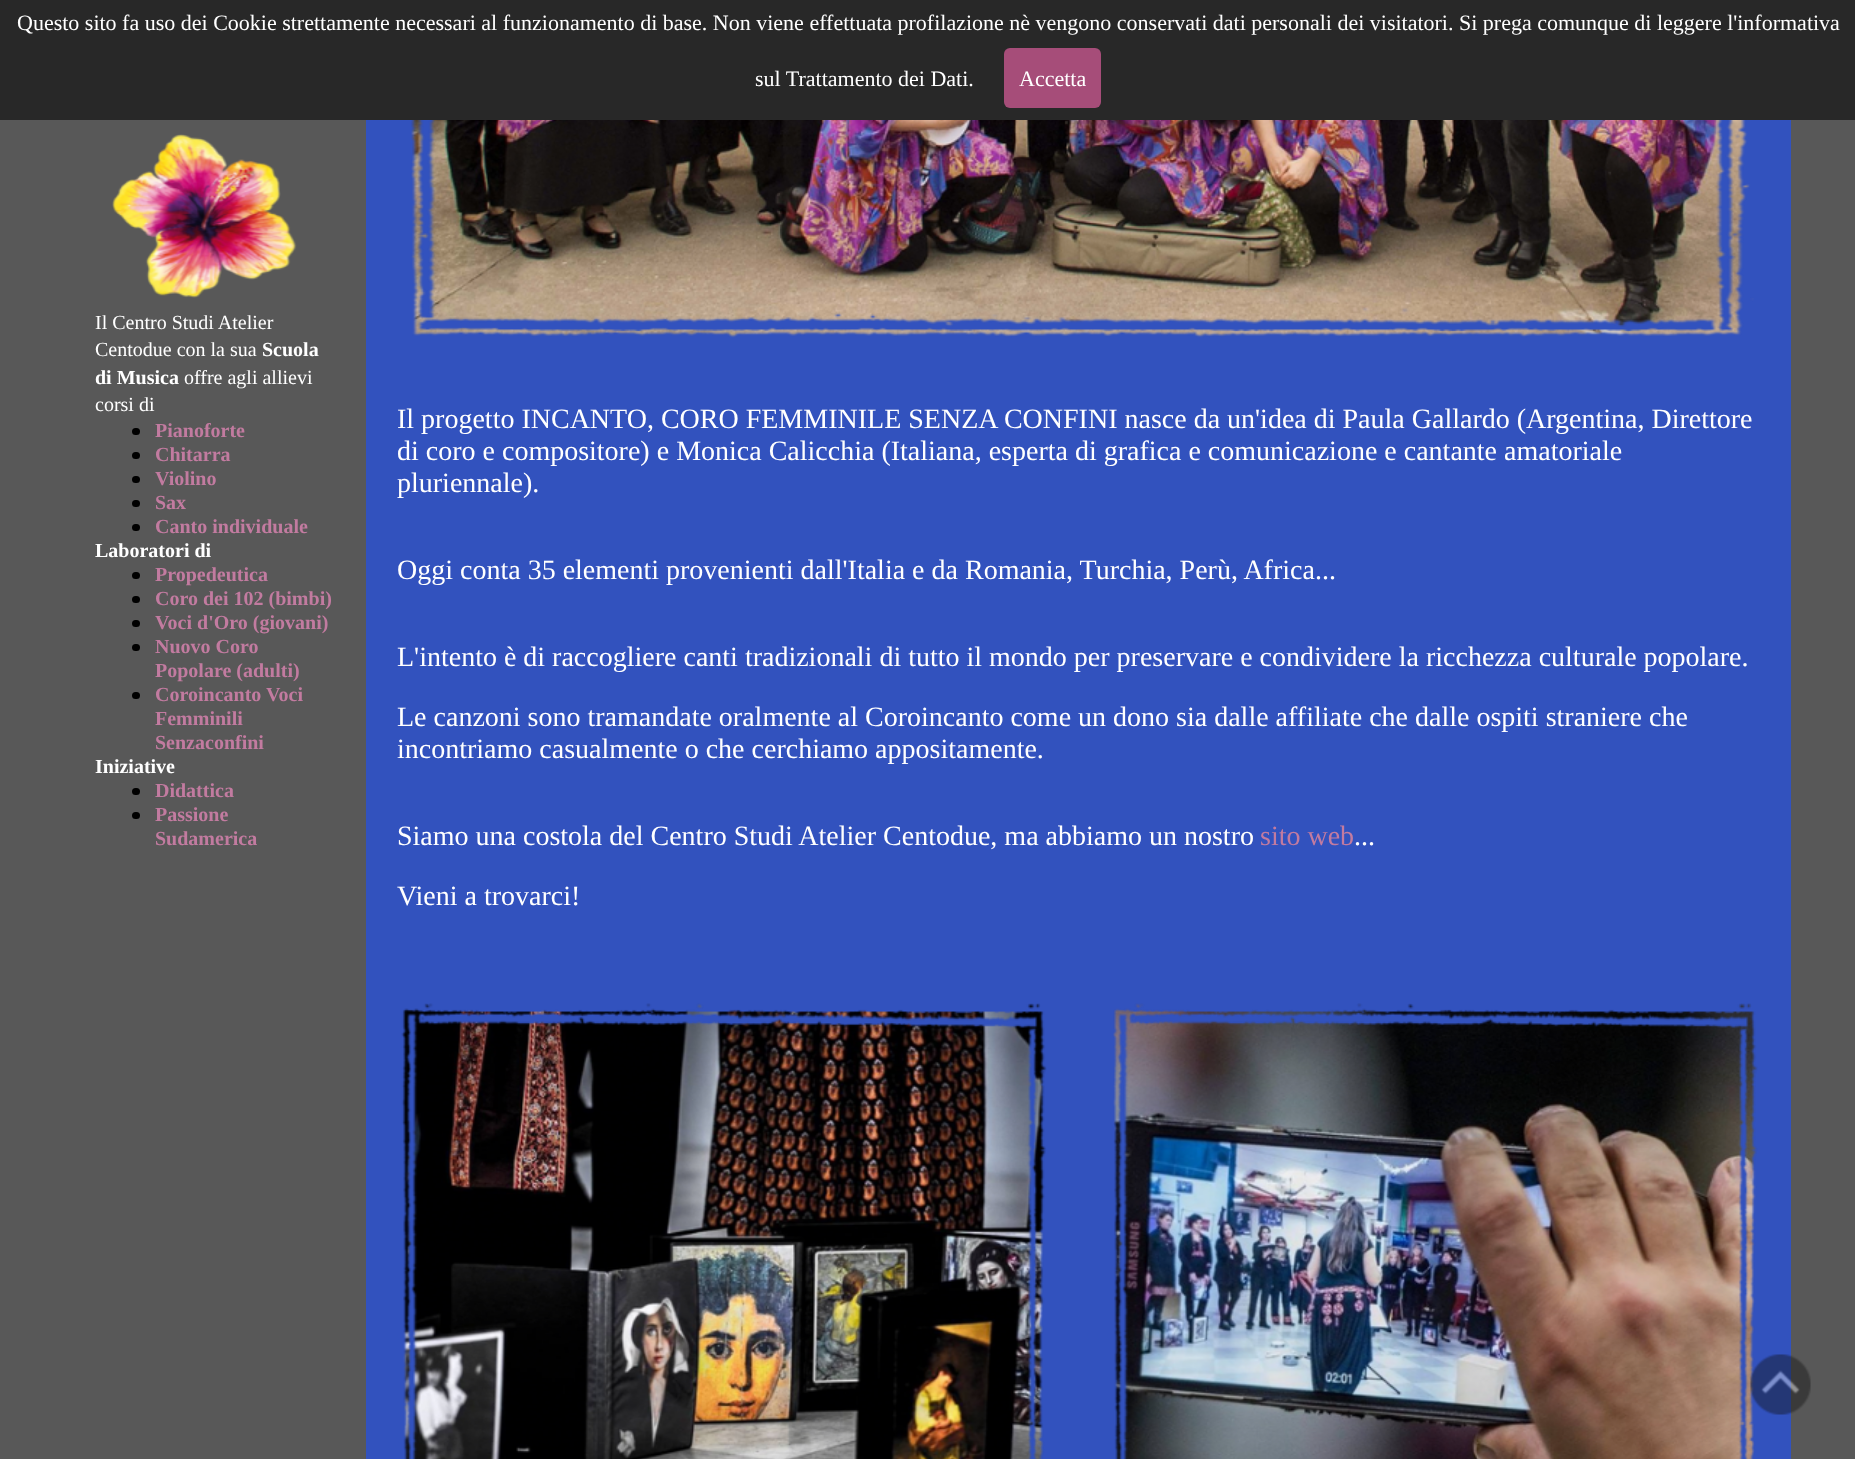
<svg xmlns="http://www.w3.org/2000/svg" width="1855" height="1459">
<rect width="100%" height="100%" fill="#585858"/>
<rect width="1855" height="120" fill="#282828"/>
<text x="17" y="30" style="font-family:Liberation Serif;font-size:22px;fill:#fff">Questo sito fa uso dei Cookie strettamente necessari al funzionamento di base. Non viene effettuata profilazione nè vengono conservati dati personali dei visitatori. Si prega comunque di leggere l'informativa</text>
<text x="755" y="86" style="font-family:Liberation Serif;font-size:22px;fill:#fff">sul Trattamento dei Dati.</text>
<rect x="1004" y="48" width="97" height="60" rx="6" fill="#a64d79"/>
<text x="1019" y="86" style="font-family:Liberation Serif;font-size:22px;fill:#fff">Accetta</text>
<image x="112" y="134" width="185" height="164" href="media/1.png"/>
<text x="95" y="329" style="font-family:Liberation Serif;font-size:20px;fill:#fff">Il Centro Studi Atelier</text>
<text x="95" y="356" style="font-family:Liberation Serif;font-size:20px;fill:#fff">Centodue con la sua</text>
<text x="262" y="356" style="font-family:Liberation Serif;font-size:20px;font-weight:bold;fill:#fff">Scuola</text>
<text x="95" y="384" style="font-family:Liberation Serif;font-size:20px;font-weight:bold;fill:#fff">di Musica</text>
<text x="184" y="384" style="font-family:Liberation Serif;font-size:20px;fill:#fff">offre agli allievi</text>
<text x="95" y="411" style="font-family:Liberation Serif;font-size:20px;fill:#fff">corsi di</text>
<rect x="132" y="428" width="8" height="7" rx="3.5" fill="#000"/>
<text x="155" y="437" style="font-family:Liberation Serif;font-size:20px;font-weight:bold;fill:#c27ba0">Pianoforte</text>
<rect x="132" y="452" width="8" height="7" rx="3.5" fill="#000"/>
<text x="155" y="461" style="font-family:Liberation Serif;font-size:20px;font-weight:bold;fill:#c27ba0">Chitarra</text>
<rect x="132" y="476" width="8" height="7" rx="3.5" fill="#000"/>
<text x="155" y="485" style="font-family:Liberation Serif;font-size:20px;font-weight:bold;fill:#c27ba0">Violino</text>
<rect x="132" y="500" width="8" height="7" rx="3.5" fill="#000"/>
<text x="155" y="509" style="font-family:Liberation Serif;font-size:20px;font-weight:bold;fill:#c27ba0">Sax</text>
<rect x="132" y="524" width="8" height="7" rx="3.5" fill="#000"/>
<text x="155" y="533" style="font-family:Liberation Serif;font-size:20px;font-weight:bold;fill:#c27ba0">Canto individuale</text>
<text x="95" y="557" style="font-family:Liberation Serif;font-size:20px;font-weight:bold;fill:#fff">Laboratori di</text>
<rect x="132" y="572" width="8" height="7" rx="3.5" fill="#000"/>
<text x="155" y="581" style="font-family:Liberation Serif;font-size:20px;font-weight:bold;fill:#c27ba0">Propedeutica</text>
<rect x="132" y="596" width="8" height="7" rx="3.5" fill="#000"/>
<text x="155" y="605" style="font-family:Liberation Serif;font-size:20px;font-weight:bold;fill:#c27ba0">Coro dei 102 (bimbi)</text>
<rect x="132" y="620" width="8" height="7" rx="3.5" fill="#000"/>
<text x="155" y="629" style="font-family:Liberation Serif;font-size:20px;font-weight:bold;fill:#c27ba0">Voci d'Oro (giovani)</text>
<rect x="132" y="644" width="8" height="7" rx="3.5" fill="#000"/>
<text x="155" y="653" style="font-family:Liberation Serif;font-size:20px;font-weight:bold;fill:#c27ba0">Nuovo Coro</text>
<text x="155" y="677" style="font-family:Liberation Serif;font-size:20px;font-weight:bold;fill:#c27ba0">Popolare (adulti)</text>
<rect x="132" y="692" width="8" height="7" rx="3.5" fill="#000"/>
<text x="155" y="701" style="font-family:Liberation Serif;font-size:20px;font-weight:bold;fill:#c27ba0">Coroincanto Voci</text>
<text x="155" y="725" style="font-family:Liberation Serif;font-size:20px;font-weight:bold;fill:#c27ba0">Femminili</text>
<text x="155" y="749" style="font-family:Liberation Serif;font-size:20px;font-weight:bold;fill:#c27ba0">Senzaconfini</text>
<text x="95" y="773" style="font-family:Liberation Serif;font-size:20px;font-weight:bold;fill:#fff">Iniziative</text>
<rect x="132" y="788" width="8" height="7" rx="3.5" fill="#000"/>
<text x="155" y="797" style="font-family:Liberation Serif;font-size:20px;font-weight:bold;fill:#c27ba0">Didattica</text>
<rect x="132" y="812" width="8" height="7" rx="3.5" fill="#000"/>
<text x="155" y="821" style="font-family:Liberation Serif;font-size:20px;font-weight:bold;fill:#c27ba0">Passione</text>
<text x="155" y="845" style="font-family:Liberation Serif;font-size:20px;font-weight:bold;fill:#c27ba0">Sudamerica</text>
<rect x="366" y="120" width="1425" height="1339" fill="#3252be"/>
<image x="411" y="120" width="1343" height="218" href="media/2.png"/>
<text x="397" y="428" style="font-family:Liberation Serif;font-size:28px;fill:#fff">Il progetto INCANTO, CORO FEMMINILE SENZA CONFINI nasce da un'idea di Paula Gallardo (Argentina, Direttore</text>
<text x="397" y="460" style="font-family:Liberation Serif;font-size:28px;fill:#fff">di coro e compositore) e Monica Calicchia (Italiana, esperta di grafica e comunicazione e cantante amatoriale</text>
<text x="397" y="492" style="font-family:Liberation Serif;font-size:28px;fill:#fff">pluriennale).</text>
<text x="397" y="579" style="font-family:Liberation Serif;font-size:28px;fill:#fff">Oggi conta 35 elementi provenienti dall'Italia e da Romania, Turchia, Perù, Africa...</text>
<text x="397" y="666" style="font-family:Liberation Serif;font-size:28px;fill:#fff">L'intento è di raccogliere canti tradizionali di tutto il mondo per preservare e condividere la ricchezza culturale popolare.</text>
<text x="397" y="726" style="font-family:Liberation Serif;font-size:28px;fill:#fff">Le canzoni sono tramandate oralmente al Coroincanto come un dono sia dalle affiliate che dalle ospiti straniere che</text>
<text x="397" y="758" style="font-family:Liberation Serif;font-size:28px;fill:#fff">incontriamo casualmente o che cerchiamo appositamente.</text>
<text x="397" y="845" style="font-family:Liberation Serif;font-size:28px;fill:#fff">Siamo una costola del Centro Studi Atelier Centodue, ma abbiamo un nostro</text>
<text x="1260" y="845" style="font-family:Liberation Serif;font-size:28px;fill:#c27ba0">sito web</text>
<text x="1354" y="845" style="font-family:Liberation Serif;font-size:28px;fill:#fff">...</text>
<text x="397" y="905" style="font-family:Liberation Serif;font-size:28px;fill:#fff">Vieni a trovarci!</text>
<image x="401" y="1003" width="646" height="456" href="media/3.png"/>
<image x="1113" y="1003" width="645" height="456" href="media/4.png"/>
<image x="1750" y="1354" width="61" height="61" href="media/5.png"/>
</svg>
